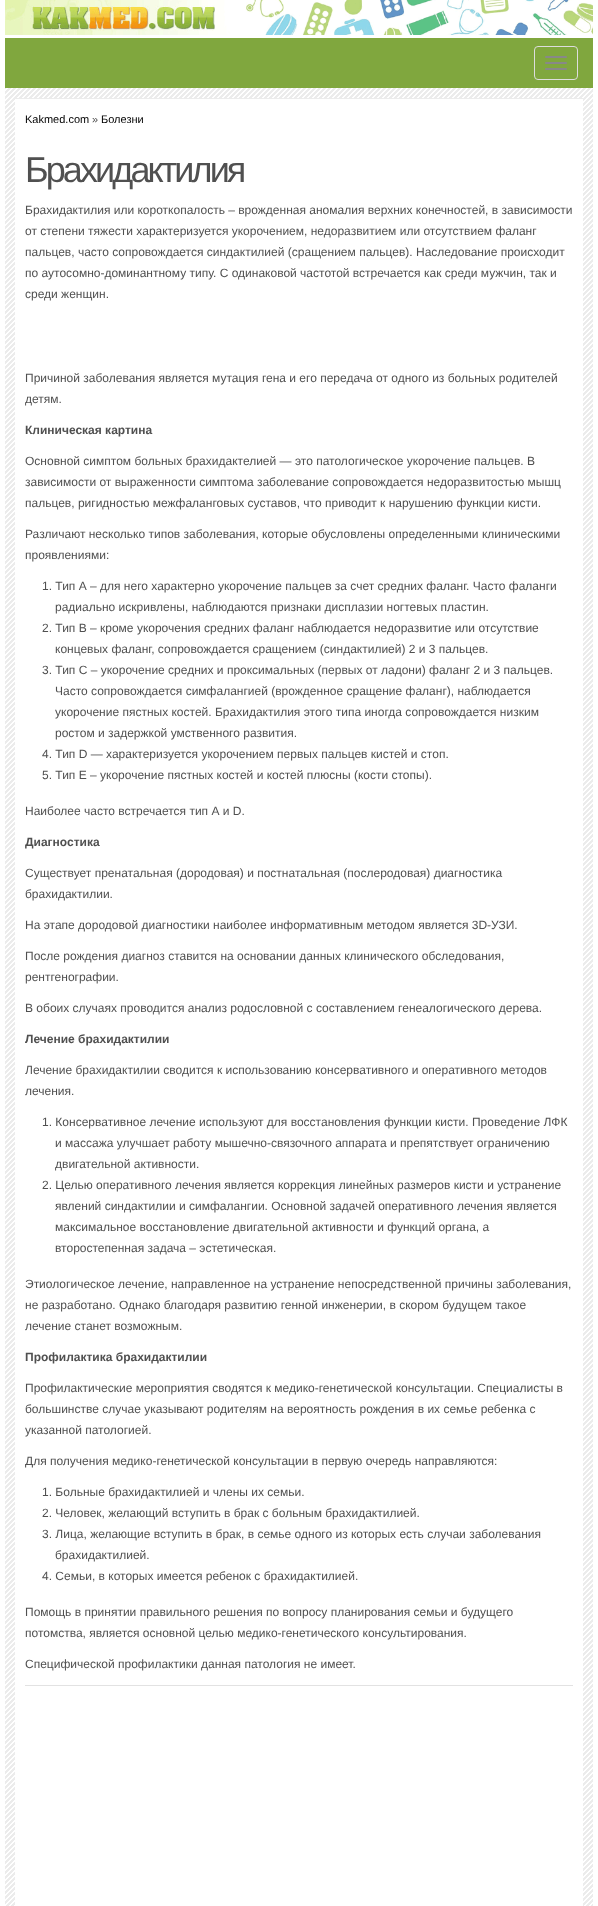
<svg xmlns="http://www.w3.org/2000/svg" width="598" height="1906">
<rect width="100%" height="100%" fill="#fff"/>
<image x="5" y="0" width="588" height="35" href="media/1.png"/>
<rect x="5" y="38" width="588" height="50" fill="#80a73e"/>
<rect x="534.5" y="46.5" width="43" height="33" rx="3.5" fill="none" stroke="#ddd"/>
<rect x="545" y="56" width="22" height="2" rx="1" fill="#888"/>
<rect x="545" y="62" width="22" height="2" rx="1" fill="#888"/>
<rect x="545" y="68" width="22" height="2" rx="1" fill="#888"/>
<image x="5" y="88" width="588" height="1818" href="media/2.png"/>
<rect x="15" y="99" width="568" height="1807" fill="#fff"/>
<rect x="15" y="98" width="568" height="1" fill="#ececec"/>
<text x="25" y="123" style="font-family:Liberation Sans;font-size:11px;fill:#000">Kakmed.com</text>
<text x="92" y="123" style="font-family:Liberation Sans;font-size:11px;fill:#505050">»</text>
<text x="101" y="123" style="font-family:Liberation Sans;font-size:11px;fill:#000">Болезни</text>
<text x="25" y="182" style="font-family:Liberation Sans;font-size:36px;letter-spacing:-2.9px;fill:#505050">Брахидактилия</text>
<rect x="25" y="1685" width="548" height="1" fill="#e2e2e2"/>
<text x="25" y="214" style="font-family:Liberation Sans;font-size:12px;fill:#505050">Брахидактилия или короткопалость – врожденная аномалия верхних конечностей, в зависимости</text>
<text x="25" y="235" style="font-family:Liberation Sans;font-size:12px;fill:#505050">от степени тяжести характеризуется укорочением, недоразвитием или отсутствием фаланг</text>
<text x="25" y="256" style="font-family:Liberation Sans;font-size:12px;fill:#505050">пальцев, часто сопровождается синдактилией (сращением пальцев). Наследование происходит</text>
<text x="25" y="277" style="font-family:Liberation Sans;font-size:12px;fill:#505050">по аутосомно-доминантному типу. С одинаковой частотой встречается как среди мужчин, так и</text>
<text x="25" y="298" style="font-family:Liberation Sans;font-size:12px;fill:#505050">среди женщин.</text>
<text x="25" y="382" style="font-family:Liberation Sans;font-size:12px;fill:#505050">Причиной заболевания является мутация гена и его передача от одного из больных родителей</text>
<text x="25" y="403" style="font-family:Liberation Sans;font-size:12px;fill:#505050">детям.</text>
<text x="25" y="434" style="font-family:Liberation Sans;font-size:12px;font-weight:bold;fill:#505050">Клиническая картина</text>
<text x="25" y="465" style="font-family:Liberation Sans;font-size:12px;fill:#505050">Основной симптом больных брахидактелией — это патологическое укорочение пальцев. В</text>
<text x="25" y="486" style="font-family:Liberation Sans;font-size:12px;fill:#505050">зависимости от выраженности симптома заболевание сопровождается недоразвитостью мышц</text>
<text x="25" y="507" style="font-family:Liberation Sans;font-size:12px;fill:#505050">пальцев, ригидностью межфаланговых суставов, что приводит к нарушению функции кисти.</text>
<text x="25" y="538" style="font-family:Liberation Sans;font-size:12px;fill:#505050">Различают несколько типов заболевания, которые обусловлены определенными клиническими</text>
<text x="25" y="559" style="font-family:Liberation Sans;font-size:12px;fill:#505050">проявлениями:</text>
<text x="42" y="590" style="font-family:Liberation Sans;font-size:12px;fill:#505050">1. Тип А – для него характерно укорочение пальцев за счет средних фаланг. Часто фаланги</text>
<text x="55" y="611" style="font-family:Liberation Sans;font-size:12px;fill:#505050">радиально искривлены, наблюдаются признаки дисплазии ногтевых пластин.</text>
<text x="42" y="632" style="font-family:Liberation Sans;font-size:12px;fill:#505050">2. Тип В – кроме укорочения средних фаланг наблюдается недоразвитие или отсутствие</text>
<text x="55" y="653" style="font-family:Liberation Sans;font-size:12px;fill:#505050">концевых фаланг, сопровождается сращением (синдактилией) 2 и 3 пальцев.</text>
<text x="42" y="674" style="font-family:Liberation Sans;font-size:12px;fill:#505050">3. Тип С – укорочение средних и проксимальных (первых от ладони) фаланг 2 и 3 пальцев.</text>
<text x="55" y="695" style="font-family:Liberation Sans;font-size:12px;fill:#505050">Часто сопровождается симфалангией (врожденное сращение фаланг), наблюдается</text>
<text x="55" y="716" style="font-family:Liberation Sans;font-size:12px;fill:#505050">укорочение пястных костей. Брахидактилия этого типа иногда сопровождается низким</text>
<text x="55" y="737" style="font-family:Liberation Sans;font-size:12px;fill:#505050">ростом и задержкой умственного развития.</text>
<text x="42" y="758" style="font-family:Liberation Sans;font-size:12px;fill:#505050">4. Тип D — характеризуется укорочением первых пальцев кистей и стоп.</text>
<text x="42" y="779" style="font-family:Liberation Sans;font-size:12px;fill:#505050">5. Тип Е – укорочение пястных костей и костей плюсны (кости стопы).</text>
<text x="25" y="815" style="font-family:Liberation Sans;font-size:12px;fill:#505050">Наиболее часто встречается тип А и D.</text>
<text x="25" y="846" style="font-family:Liberation Sans;font-size:12px;font-weight:bold;fill:#505050">Диагностика</text>
<text x="25" y="877" style="font-family:Liberation Sans;font-size:12px;fill:#505050">Существует пренатальная (дородовая) и постнатальная (послеродовая) диагностика</text>
<text x="25" y="898" style="font-family:Liberation Sans;font-size:12px;fill:#505050">брахидактилии.</text>
<text x="25" y="929" style="font-family:Liberation Sans;font-size:12px;fill:#505050">На этапе дородовой диагностики наиболее информативным методом является 3D-УЗИ.</text>
<text x="25" y="960" style="font-family:Liberation Sans;font-size:12px;fill:#505050">После рождения диагноз ставится на основании данных клинического обследования,</text>
<text x="25" y="981" style="font-family:Liberation Sans;font-size:12px;fill:#505050">рентгенографии.</text>
<text x="25" y="1012" style="font-family:Liberation Sans;font-size:12px;fill:#505050">В обоих случаях проводится анализ родословной с составлением генеалогического дерева.</text>
<text x="25" y="1043" style="font-family:Liberation Sans;font-size:12px;font-weight:bold;fill:#505050">Лечение брахидактилии</text>
<text x="25" y="1074" style="font-family:Liberation Sans;font-size:12px;fill:#505050">Лечение брахидактилии сводится к использованию консервативного и оперативного методов</text>
<text x="25" y="1095" style="font-family:Liberation Sans;font-size:12px;fill:#505050">лечения.</text>
<text x="42" y="1126" style="font-family:Liberation Sans;font-size:12px;fill:#505050">1. Консервативное лечение используют для восстановления функции кисти. Проведение ЛФК</text>
<text x="55" y="1147" style="font-family:Liberation Sans;font-size:12px;fill:#505050">и массажа улучшает работу мышечно-связочного аппарата и препятствует ограничению</text>
<text x="55" y="1168" style="font-family:Liberation Sans;font-size:12px;fill:#505050">двигательной активности.</text>
<text x="42" y="1189" style="font-family:Liberation Sans;font-size:12px;fill:#505050">2. Целью оперативного лечения является коррекция линейных размеров кисти и устранение</text>
<text x="55" y="1210" style="font-family:Liberation Sans;font-size:12px;fill:#505050">явлений синдактилии и симфалангии. Основной задачей оперативного лечения является</text>
<text x="55" y="1231" style="font-family:Liberation Sans;font-size:12px;fill:#505050">максимальное восстановление двигательной активности и функций органа, а</text>
<text x="55" y="1252" style="font-family:Liberation Sans;font-size:12px;fill:#505050">второстепенная задача – эстетическая.</text>
<text x="25" y="1288" style="font-family:Liberation Sans;font-size:12px;fill:#505050">Этиологическое лечение, направленное на устранение непосредственной причины заболевания,</text>
<text x="25" y="1309" style="font-family:Liberation Sans;font-size:12px;fill:#505050">не разработано. Однако благодаря развитию генной инженерии, в скором будущем такое</text>
<text x="25" y="1330" style="font-family:Liberation Sans;font-size:12px;fill:#505050">лечение станет возможным.</text>
<text x="25" y="1361" style="font-family:Liberation Sans;font-size:12px;font-weight:bold;fill:#505050">Профилактика брахидактилии</text>
<text x="25" y="1392" style="font-family:Liberation Sans;font-size:12px;fill:#505050">Профилактические мероприятия сводятся к медико-генетической консультации. Специалисты в</text>
<text x="25" y="1413" style="font-family:Liberation Sans;font-size:12px;fill:#505050">большинстве случае указывают родителям на вероятность рождения в их семье ребенка с</text>
<text x="25" y="1434" style="font-family:Liberation Sans;font-size:12px;fill:#505050">указанной патологией.</text>
<text x="25" y="1465" style="font-family:Liberation Sans;font-size:12px;fill:#505050">Для получения медико-генетической консультации в первую очередь направляются:</text>
<text x="42" y="1496" style="font-family:Liberation Sans;font-size:12px;fill:#505050">1. Больные брахидактилией и члены их семьи.</text>
<text x="42" y="1517" style="font-family:Liberation Sans;font-size:12px;fill:#505050">2. Человек, желающий вступить в брак с больным брахидактилией.</text>
<text x="42" y="1538" style="font-family:Liberation Sans;font-size:12px;fill:#505050">3. Лица, желающие вступить в брак, в семье одного из которых есть случаи заболевания</text>
<text x="55" y="1559" style="font-family:Liberation Sans;font-size:12px;fill:#505050">брахидактилией.</text>
<text x="42" y="1580" style="font-family:Liberation Sans;font-size:12px;fill:#505050">4. Семьи, в которых имеется ребенок с брахидактилией.</text>
<text x="25" y="1616" style="font-family:Liberation Sans;font-size:12px;fill:#505050">Помощь в принятии правильного решения по вопросу планирования семьи и будущего</text>
<text x="25" y="1637" style="font-family:Liberation Sans;font-size:12px;fill:#505050">потомства, является основной целью медико-генетического консультирования.</text>
<text x="25" y="1668" style="font-family:Liberation Sans;font-size:12px;fill:#505050">Специфической профилактики данная патология не имеет.</text>
</svg>
